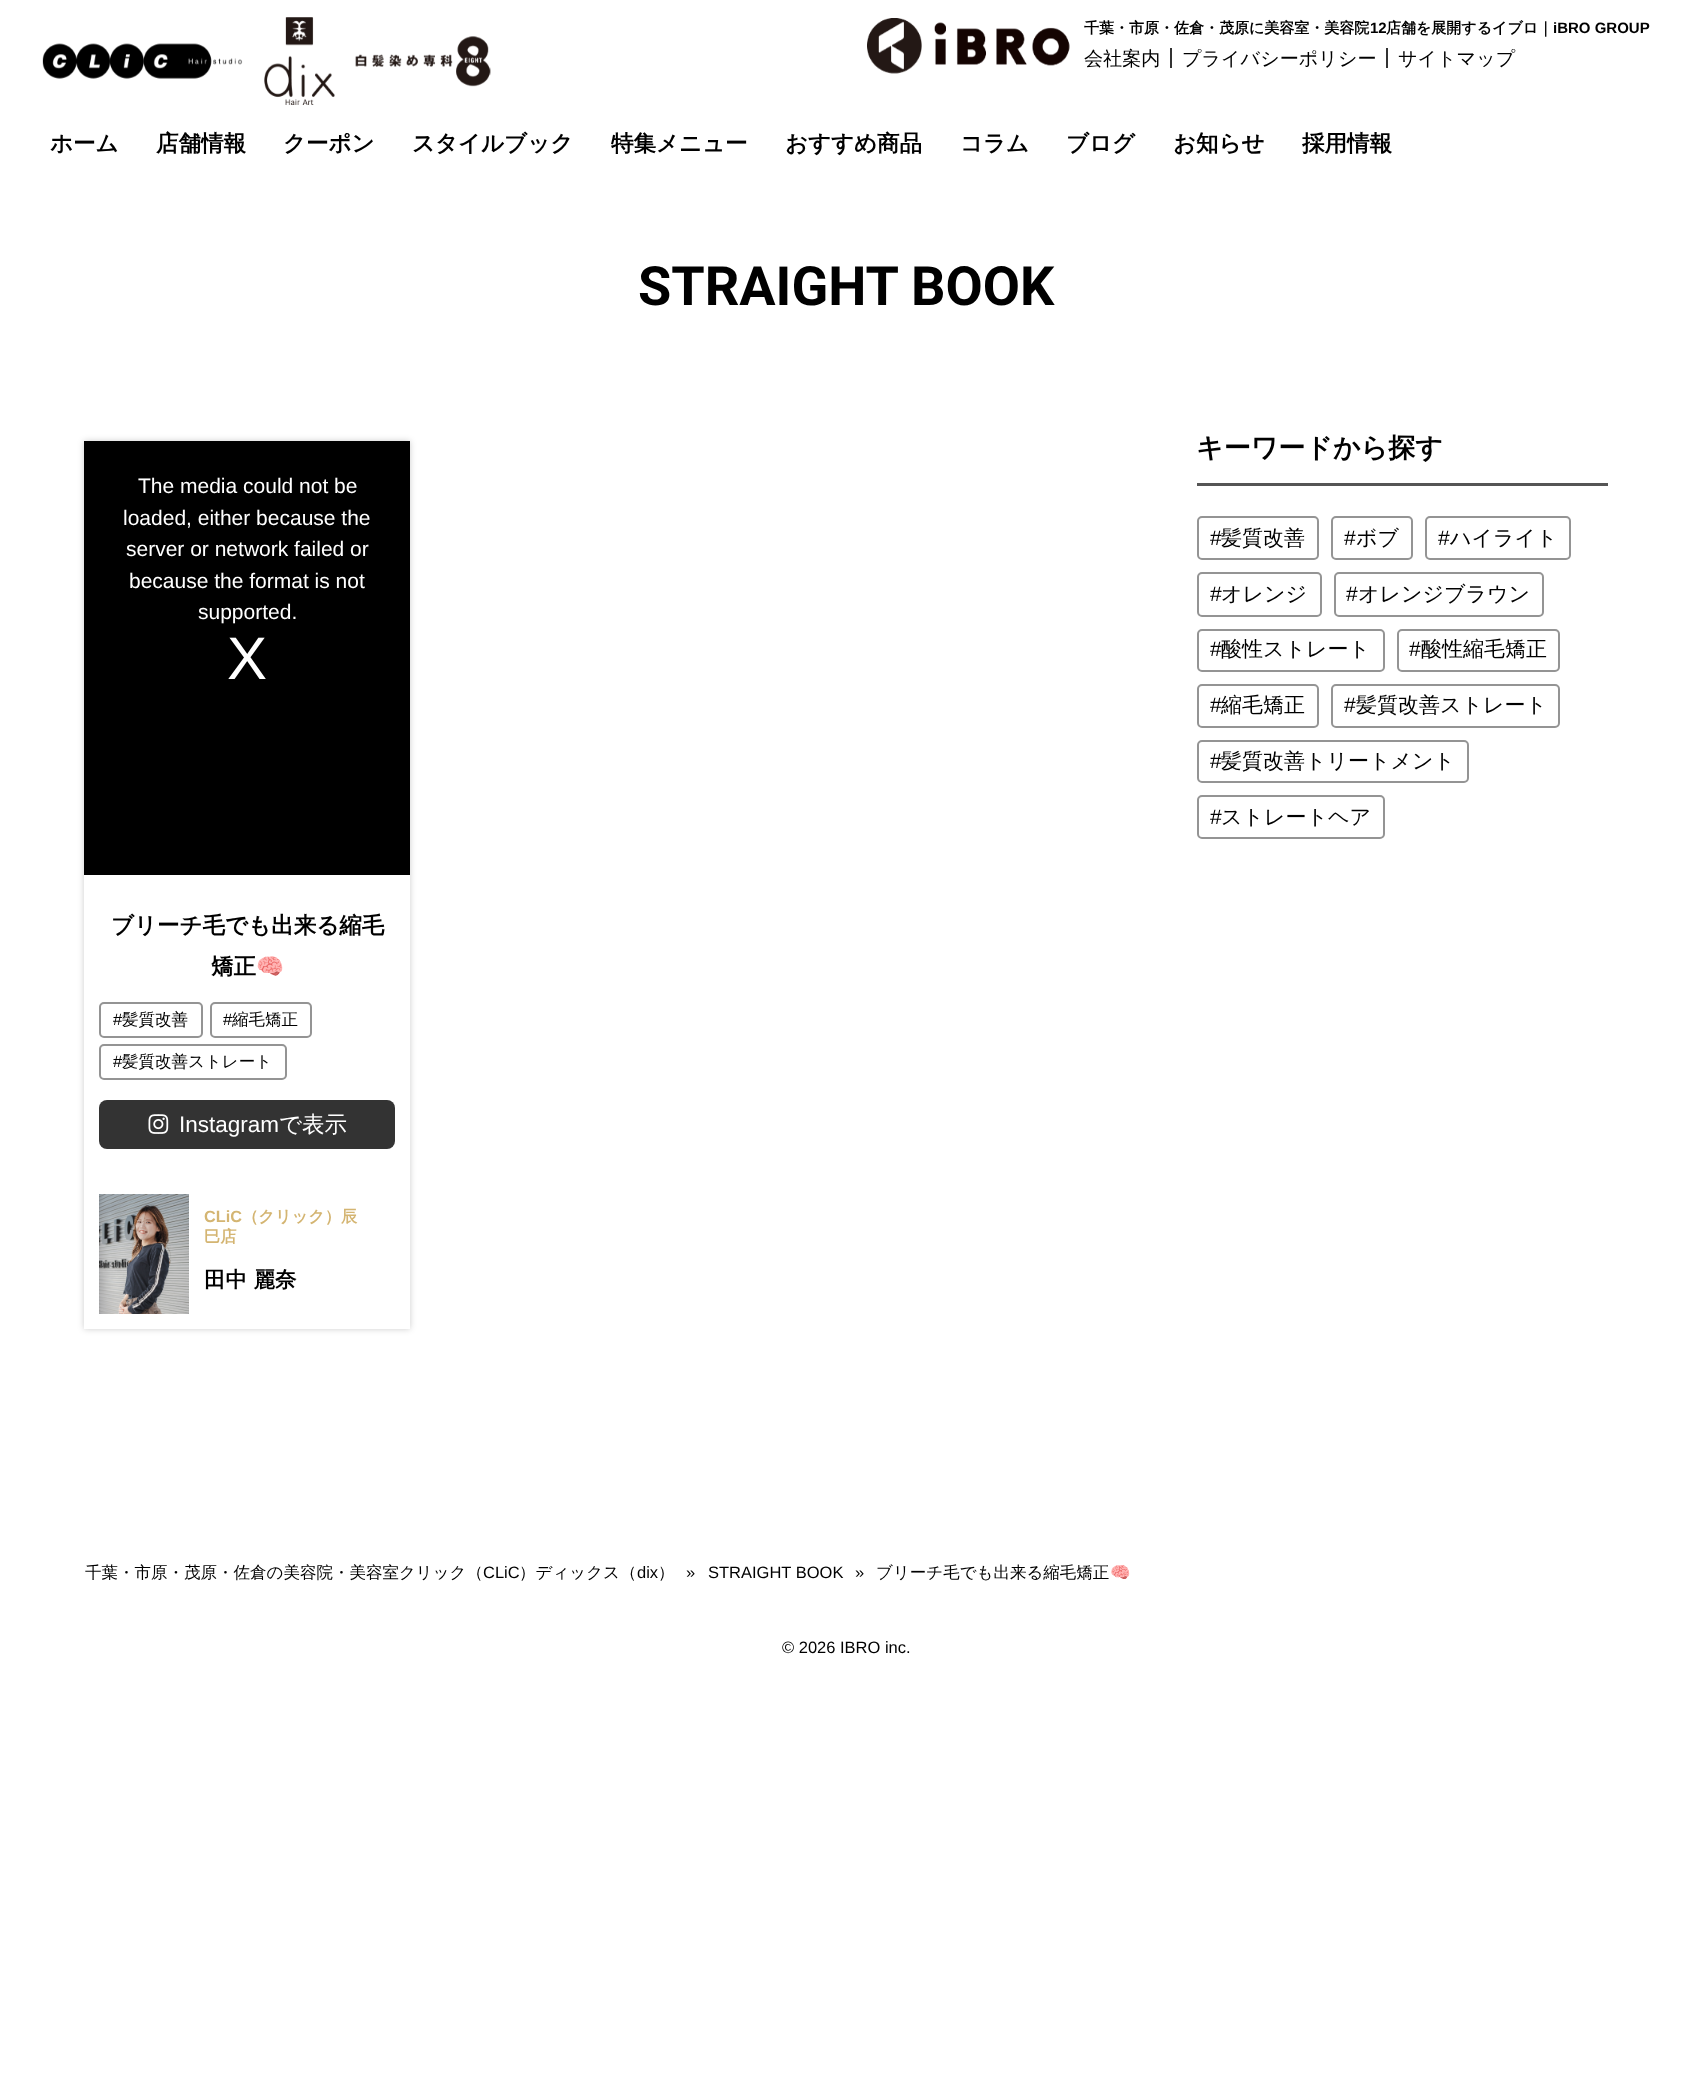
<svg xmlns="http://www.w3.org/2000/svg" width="1691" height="2086">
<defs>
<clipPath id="clip1"><path d="M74 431h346v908h-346zm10 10h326v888h-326z" clip-rule="evenodd"/></clipPath>
</defs>
<rect width="100%" height="100%" fill="#fff"/>
<image x="42" y="17" width="449" height="88" href="media/1.png"/>
<image x="867" y="18" width="203" height="56" href="media/2.png"/>
<text x="1084" y="33" style="font-family:WenQuanYi Zen Hei;font-size:15px;font-weight:bold;fill:#000">千葉・市原・佐倉・茂原に美容室・美容院</text>
<text x="1370" y="33" style="font-family:Liberation Sans;font-size:15px;font-weight:bold;fill:#000">12</text>
<text x="1386" y="33" style="font-family:WenQuanYi Zen Hei;font-size:15px;font-weight:bold;fill:#000">店舗を展開するイブロ｜</text>
<text x="1553" y="33" style="font-family:Liberation Sans;font-size:15px;font-weight:bold;fill:#000">iBRO GROUP</text>
<text x="1084" y="65" style="font-family:WenQuanYi Zen Hei;font-size:19.1px;font-weight:500;fill:#000">会社案内</text>
<rect x="1170" y="48" width="2" height="20" fill="#333"/>
<text x="1182" y="65" style="font-family:WenQuanYi Zen Hei;font-size:19.1px;font-weight:500;fill:#000">プライバシーポリシー</text>
<rect x="1386" y="48" width="2" height="20" fill="#333"/>
<text x="1398" y="65" style="font-family:WenQuanYi Zen Hei;font-size:19.1px;font-weight:500;fill:#000">サイトマップ</text>
<text x="50" y="151" style="font-family:WenQuanYi Zen Hei;font-size:22.5px;font-weight:bold;fill:#000">ホーム</text>
<text x="156" y="151" style="font-family:WenQuanYi Zen Hei;font-size:22.5px;font-weight:bold;fill:#000">店舗情報</text>
<text x="283" y="151" style="font-family:WenQuanYi Zen Hei;font-size:22.5px;font-weight:bold;fill:#000">クーポン</text>
<text x="412" y="151" style="font-family:WenQuanYi Zen Hei;font-size:22.5px;font-weight:bold;fill:#000">スタイルブック</text>
<text x="611" y="151" style="font-family:WenQuanYi Zen Hei;font-size:22.5px;font-weight:bold;fill:#000">特集メニュー</text>
<text x="785" y="151" style="font-family:WenQuanYi Zen Hei;font-size:22.5px;font-weight:bold;fill:#000">おすすめ商品</text>
<text x="960" y="151" style="font-family:WenQuanYi Zen Hei;font-size:22.5px;font-weight:bold;fill:#000">コラム</text>
<text x="1066" y="151" style="font-family:WenQuanYi Zen Hei;font-size:22.5px;font-weight:bold;fill:#000">ブログ</text>
<text x="1173" y="151" style="font-family:WenQuanYi Zen Hei;font-size:22.5px;font-weight:bold;fill:#000">お知らせ</text>
<text x="1302" y="151" style="font-family:WenQuanYi Zen Hei;font-size:22.5px;font-weight:bold;fill:#000">採用情報</text>
<text x="638" y="305" style="font-family:Roboto;font-size:54px;font-weight:bold;fill:#000">STRAIGHT BOOK</text>
<g clip-path="url(#clip1)">
<rect x="84" y="441" width="326" height="888" fill="#00000033" filter="blur(3px)"/>
</g>
<rect x="84" y="441" width="326" height="434" fill="#000"/>
<text x="138" y="493" style="font-family:Liberation Sans;font-size:21px;fill:#fff">The media could not be</text>
<text x="123" y="525" style="font-family:Liberation Sans;font-size:21px;fill:#fff">loaded, either because the</text>
<text x="126" y="556" style="font-family:Liberation Sans;font-size:21px;fill:#fff">server or network failed or</text>
<text x="129" y="588" style="font-family:Liberation Sans;font-size:21px;fill:#fff">because the format is not</text>
<text x="198" y="619" style="font-family:Liberation Sans;font-size:21px;fill:#fff">supported.</text>
<text x="227" y="679" style="font-family:Liberation Sans;font-size:60px;fill:#fff">X</text>
<text x="111" y="933" style="font-family:WenQuanYi Zen Hei;font-size:22.5px;font-weight:bold;fill:#000">ブリーチ毛でも出来る縮毛</text>
<text x="211" y="974" style="font-family:WenQuanYi Zen Hei;font-size:22.5px;font-weight:bold;fill:#000">矯正</text>
<text x="256" y="974" style="font-family:Noto Color Emoji;font-size:22.5px;font-weight:bold;fill:#000">🧠</text>
<rect x="100" y="1003" width="102" height="34" rx="4" fill="none" stroke="#949494" stroke-width="2"/>
<text x="113" y="1025" style="font-family:Liberation Sans;font-size:16.5px;fill:#000">#</text>
<text x="122" y="1025" style="font-family:WenQuanYi Zen Hei;font-size:16.5px;font-weight:500;fill:#000">髪質改善</text>
<rect x="211" y="1003" width="100" height="34" rx="4" fill="none" stroke="#949494" stroke-width="2"/>
<text x="223" y="1025" style="font-family:Liberation Sans;font-size:16.5px;fill:#000">#</text>
<text x="232" y="1025" style="font-family:WenQuanYi Zen Hei;font-size:16.5px;font-weight:500;fill:#000">縮毛矯正</text>
<rect x="100" y="1045" width="186" height="34" rx="4" fill="none" stroke="#949494" stroke-width="2"/>
<text x="113" y="1067" style="font-family:Liberation Sans;font-size:16.5px;fill:#000">#</text>
<text x="122" y="1067" style="font-family:WenQuanYi Zen Hei;font-size:16.5px;font-weight:500;fill:#000">髪質改善ストレート</text>
<rect x="99" y="1100" width="296" height="49" rx="8" fill="#333"/>
<image x="148" y="1114" width="21" height="20" href="media/3.png"/>
<text x="179" y="1132" style="font-family:Liberation Sans;font-size:22.5px;fill:#fff">Instagram</text>
<text x="279" y="1132" style="font-family:WenQuanYi Zen Hei;font-size:22.5px;font-weight:500;fill:#fff">で表示</text>
<image x="99" y="1194" width="90" height="120" href="media/4.png"/>
<text x="204" y="1222" style="font-family:Liberation Sans;font-size:16.25px;font-weight:bold;fill:#d4b572">CLiC</text>
<text x="242" y="1222" style="font-family:WenQuanYi Zen Hei;font-size:16.25px;font-weight:bold;fill:#d4b572">（クリック）辰</text>
<text x="204" y="1242" style="font-family:WenQuanYi Zen Hei;font-size:16.25px;font-weight:bold;fill:#d4b572">巳店</text>
<text x="204" y="1287" style="font-family:WenQuanYi Zen Hei;font-size:21.5px;font-weight:bold;fill:#000">田中 麗奈</text>
<rect x="1197" y="483" width="411" height="3" fill="#555"/>
<text x="1196" y="457" style="font-family:WenQuanYi Zen Hei;font-size:27px;font-weight:bold;fill:#000">キーワードから探す</text>
<rect x="1198" y="517" width="120" height="42" rx="4" fill="none" stroke="#949494" stroke-width="2"/>
<text x="1210" y="545" style="font-family:Liberation Sans;font-size:21px;fill:#000">#</text>
<text x="1221" y="545" style="font-family:WenQuanYi Zen Hei;font-size:21px;font-weight:500;fill:#000">髪質改善</text>
<rect x="1332" y="517" width="80" height="42" rx="4" fill="none" stroke="#949494" stroke-width="2"/>
<text x="1344" y="545" style="font-family:Liberation Sans;font-size:21px;fill:#000">#</text>
<text x="1356" y="545" style="font-family:WenQuanYi Zen Hei;font-size:21px;font-weight:500;fill:#000">ボブ</text>
<rect x="1426" y="517" width="144" height="42" rx="4" fill="none" stroke="#949494" stroke-width="2"/>
<text x="1438" y="545" style="font-family:Liberation Sans;font-size:21px;fill:#000">#</text>
<text x="1450" y="545" style="font-family:WenQuanYi Zen Hei;font-size:21px;font-weight:500;fill:#000">ハイライト</text>
<rect x="1198" y="573" width="123" height="43" rx="4" fill="none" stroke="#949494" stroke-width="2"/>
<text x="1210" y="601" style="font-family:Liberation Sans;font-size:21px;fill:#000">#</text>
<text x="1221" y="601" style="font-family:WenQuanYi Zen Hei;font-size:21px;font-weight:500;fill:#000">オレンジ</text>
<rect x="1335" y="573" width="208" height="43" rx="4" fill="none" stroke="#949494" stroke-width="2"/>
<text x="1346" y="601" style="font-family:Liberation Sans;font-size:21px;fill:#000">#</text>
<text x="1358" y="601" style="font-family:WenQuanYi Zen Hei;font-size:21px;font-weight:500;fill:#000">オレンジブラウン</text>
<rect x="1198" y="630" width="186" height="41" rx="4" fill="none" stroke="#949494" stroke-width="2"/>
<text x="1210" y="656" style="font-family:Liberation Sans;font-size:21px;fill:#000">#</text>
<text x="1221" y="656" style="font-family:WenQuanYi Zen Hei;font-size:21px;font-weight:500;fill:#000">酸性ストレート</text>
<rect x="1398" y="630" width="161" height="41" rx="4" fill="none" stroke="#949494" stroke-width="2"/>
<text x="1409" y="656" style="font-family:Liberation Sans;font-size:21px;fill:#000">#</text>
<text x="1421" y="656" style="font-family:WenQuanYi Zen Hei;font-size:21px;font-weight:500;fill:#000">酸性縮毛矯正</text>
<rect x="1198" y="685" width="120" height="42" rx="4" fill="none" stroke="#949494" stroke-width="2"/>
<text x="1210" y="712" style="font-family:Liberation Sans;font-size:21px;fill:#000">#</text>
<text x="1221" y="712" style="font-family:WenQuanYi Zen Hei;font-size:21px;font-weight:500;fill:#000">縮毛矯正</text>
<rect x="1332" y="685" width="227" height="42" rx="4" fill="none" stroke="#949494" stroke-width="2"/>
<text x="1344" y="712" style="font-family:Liberation Sans;font-size:21px;fill:#000">#</text>
<text x="1356" y="712" style="font-family:WenQuanYi Zen Hei;font-size:21px;font-weight:500;fill:#000">髪質改善ストレート</text>
<rect x="1198" y="741" width="270" height="41" rx="4" fill="none" stroke="#949494" stroke-width="2"/>
<text x="1210" y="768" style="font-family:Liberation Sans;font-size:21px;fill:#000">#</text>
<text x="1221" y="768" style="font-family:WenQuanYi Zen Hei;font-size:21px;font-weight:500;fill:#000">髪質改善トリートメント</text>
<rect x="1198" y="796" width="186" height="42" rx="4" fill="none" stroke="#949494" stroke-width="2"/>
<text x="1210" y="824" style="font-family:Liberation Sans;font-size:21px;fill:#000">#</text>
<text x="1221" y="824" style="font-family:WenQuanYi Zen Hei;font-size:21px;font-weight:500;fill:#000">ストレートヘア</text>
<text x="85" y="1578" style="font-family:WenQuanYi Zen Hei;font-size:16.5px;font-weight:500;fill:#000">千葉・市原・茂原・佐倉の美容院・美容室クリック（</text>
<text x="483" y="1578" style="font-family:Liberation Sans;font-size:16.5px;fill:#000">CLiC</text>
<text x="519" y="1578" style="font-family:WenQuanYi Zen Hei;font-size:16.5px;font-weight:500;fill:#000">）ディックス（</text>
<text x="637" y="1578" style="font-family:Liberation Sans;font-size:16.5px;fill:#000">dix</text>
<text x="658" y="1578" style="font-family:WenQuanYi Zen Hei;font-size:16.5px;font-weight:500;fill:#000">）</text>
<text x="686" y="1578" style="font-family:Liberation Sans;font-size:16.5px;fill:#000">»</text>
<text x="708" y="1578" style="font-family:Liberation Sans;font-size:16.5px;fill:#000">STRAIGHT BOOK</text>
<text x="855" y="1578" style="font-family:Liberation Sans;font-size:16.5px;fill:#000">»</text>
<text x="876" y="1578" style="font-family:WenQuanYi Zen Hei;font-size:16.5px;font-weight:500;fill:#000">ブリーチ毛でも出来る縮毛矯正</text>
<text x="1110" y="1578" style="font-family:Noto Color Emoji;font-size:16.5px;fill:#000">🧠</text>
<text x="782" y="1653" style="font-family:Liberation Sans;font-size:16.5px;fill:#000">© 2026 IBRO inc.</text>
</svg>
